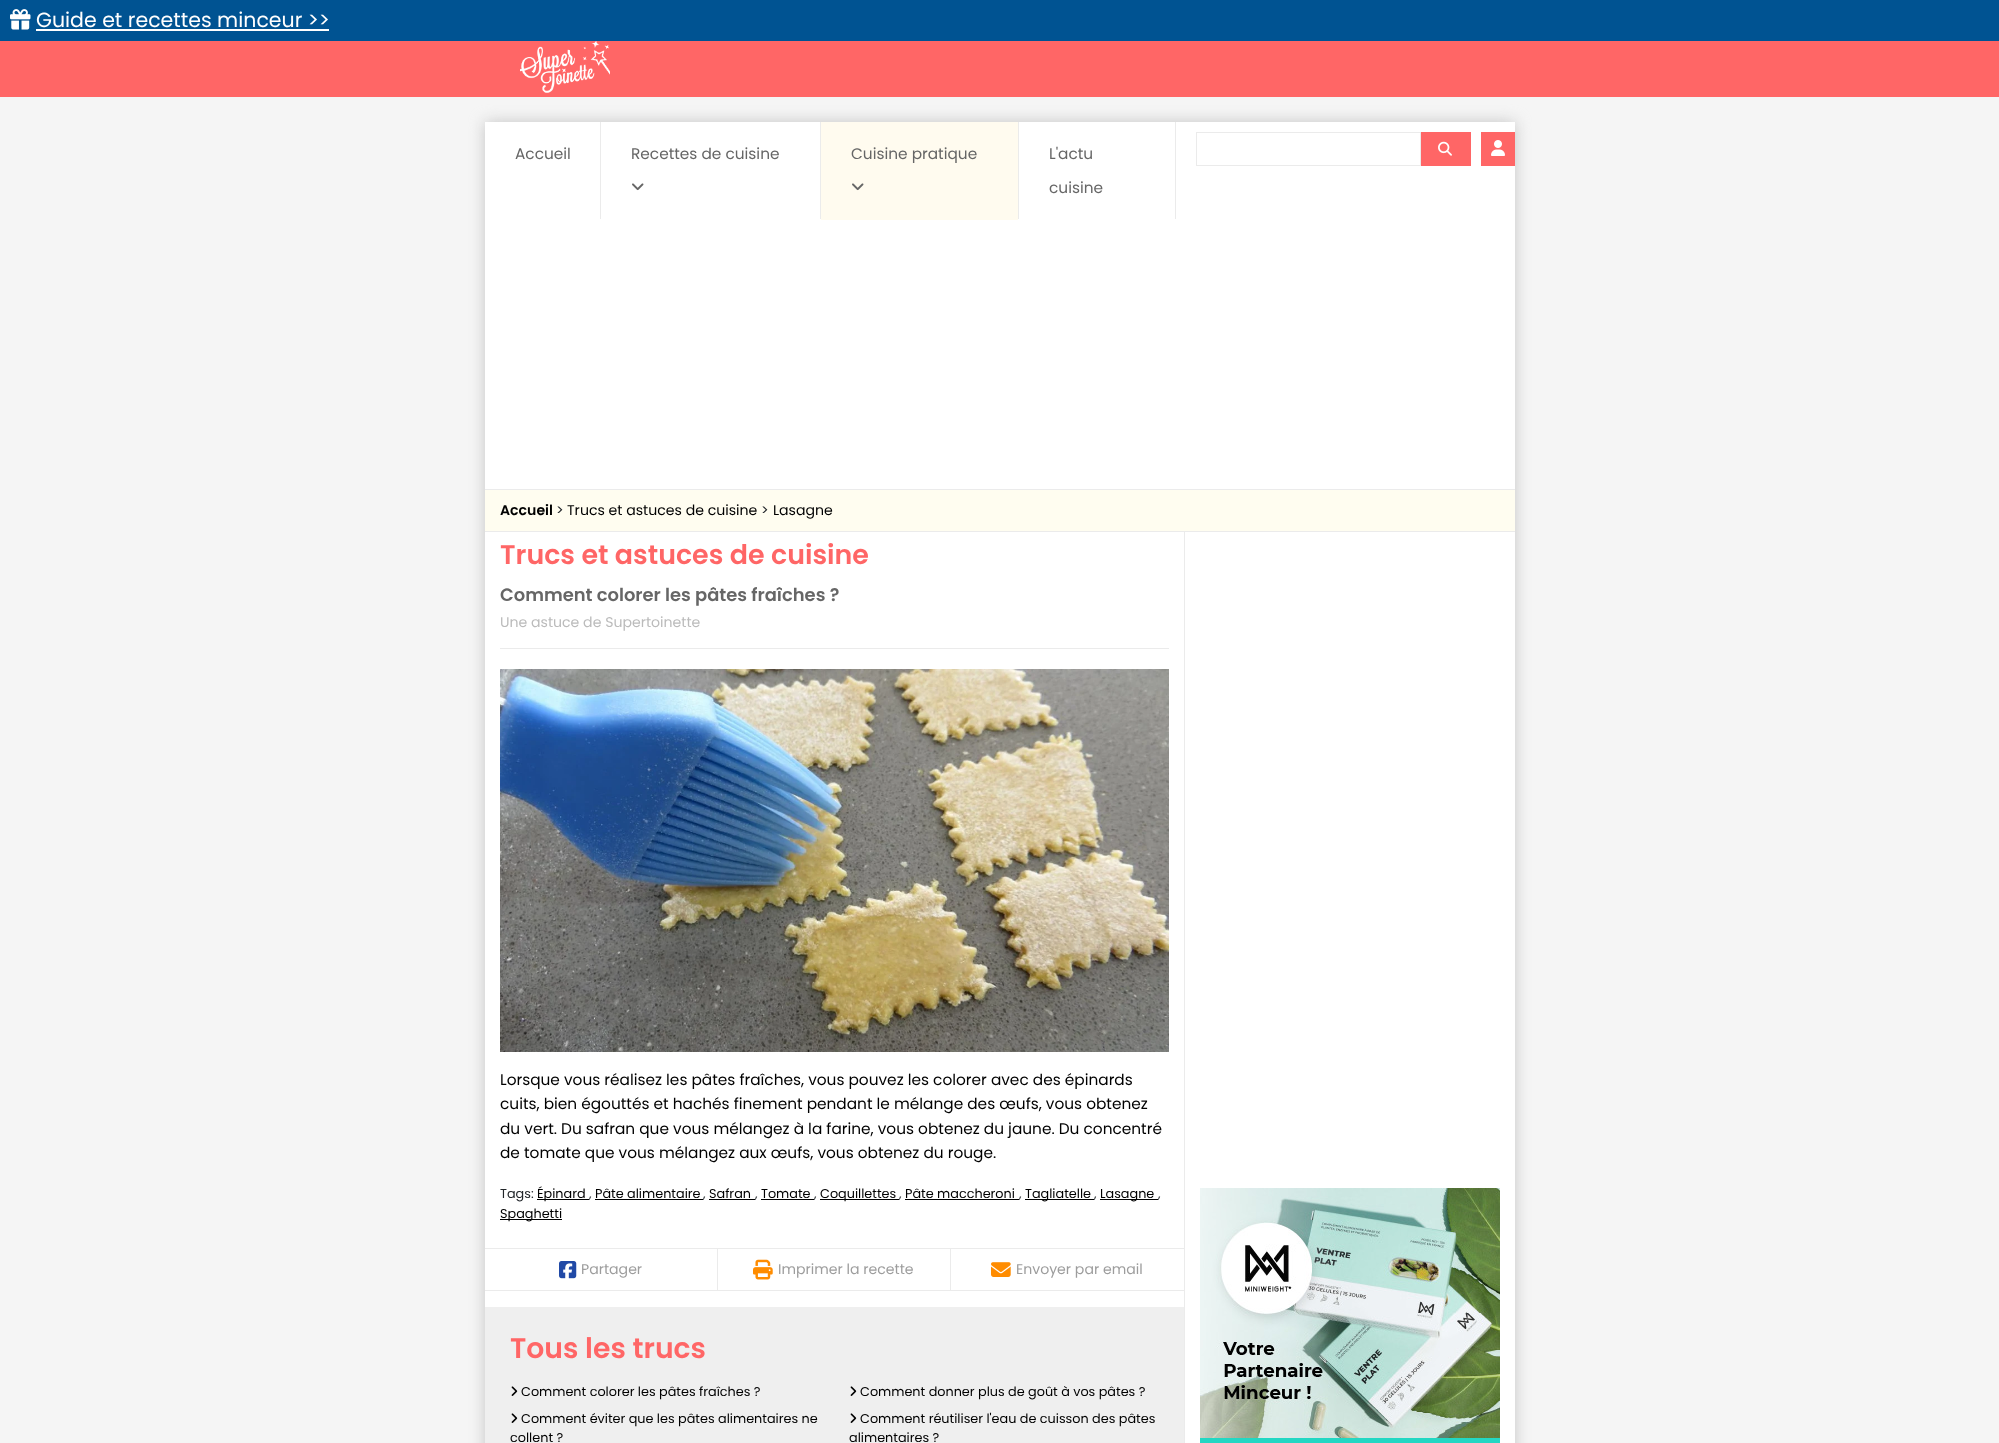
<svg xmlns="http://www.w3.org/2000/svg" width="1999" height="1443">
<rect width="100%" height="100%" fill="#f5f5f5"/>
<rect width="1999" height="41" fill="#005392"/>
<image x="10" y="9" width="21" height="21" href="media/1.png"/>
<text x="36" y="27" style="font-family:Poppins;font-size:20.5px;fill:#fff">Guide et recettes minceur &gt;&gt;</text>
<rect x="36" y="29" width="293" height="2" fill="#fff"/>
<rect x="485" y="122" width="1030" height="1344" fill="#c5c5c5" filter="blur(7.5px)"/>
<rect x="485" y="122" width="1030" height="1321" fill="#fff"/>
<text x="515" y="159" style="font-family:Poppins;font-size:15.35px;fill:#666">Accueil</text>
<rect x="600" y="122" width="1" height="97" fill="#ebebeb"/>
<text x="631" y="159" style="font-family:Poppins;font-size:15.35px;fill:#666">Recettes de cuisine</text>
<image x="632" y="183" width="12" height="8" href="media/2.png"/>
<rect x="820" y="122" width="1" height="97" fill="#ebebeb"/>
<rect x="821" y="122" width="197" height="98" fill="#fffbef"/>
<text x="851" y="159" style="font-family:Poppins;font-size:15.35px;fill:#666">Cuisine pratique</text>
<image x="852" y="183" width="12" height="8" href="media/3.png"/>
<rect x="1018" y="122" width="1" height="97" fill="#ebebeb"/>
<text x="1049" y="159" style="font-family:Poppins;font-size:15.35px;fill:#666">L'actu</text>
<text x="1049" y="193" style="font-family:Poppins;font-size:15.35px;fill:#666">cuisine</text>
<rect x="1175" y="122" width="1" height="97" fill="#ebebeb"/>
<rect x="1196.5" y="132.5" width="224" height="33" fill="none" stroke="#ebebeb"/>
<rect x="1421" y="132" width="50" height="34" fill="#f66"/>
<image x="1438" y="141" width="14" height="15" href="media/4.png"/>
<rect x="1481" y="132" width="34" height="34" fill="#f66"/>
<image x="1491" y="140" width="14" height="16" href="media/5.png"/>
<rect x="485" y="490" width="1030" height="41" fill="#fffdf0"/>
<rect x="485" y="489" width="1030" height="1" fill="#ebebeb"/>
<text x="500" y="515" style="font-family:Poppins;font-size:14.1px;font-weight:600;fill:#000">Accueil</text>
<text x="556" y="515" style="font-family:Poppins;font-size:14.1px;fill:#212529">&gt;</text>
<text x="567" y="515" style="font-family:Poppins;font-size:14.1px;fill:#000">Trucs et astuces de cuisine</text>
<text x="761" y="515" style="font-family:Poppins;font-size:14.1px;fill:#212529">&gt;</text>
<text x="773" y="515" style="font-family:Poppins;font-size:14.1px;fill:#000">Lasagne</text>
<rect x="485" y="531" width="1030" height="1" fill="#ebebeb"/>
<rect x="1184" y="531" width="1" height="912" fill="#ebebeb"/>
<text x="500" y="564" style="font-family:Poppins;font-size:26.9px;font-weight:600;fill:#f66">Trucs et astuces de cuisine</text>
<text x="500" y="601" style="font-family:Poppins;font-size:17.9px;font-weight:600;fill:#666">Comment colorer les pâtes fraîches ?</text>
<rect x="500" y="648" width="669" height="1" fill="#ebebeb"/>
<text x="500" y="627" style="font-family:Poppins;font-size:14.1px;fill:#bbb">Une astuce de Supertoinette</text>
<image x="500" y="669" width="669" height="383" href="media/6.png"/>
<text x="500" y="1085" style="font-family:Poppins;font-size:15.35px;fill:#000">Lorsque vous réalisez les pâtes fraîches, vous pouvez les colorer avec des épinards</text>
<text x="500" y="1109" style="font-family:Poppins;font-size:15.35px;fill:#000">cuits, bien égouttés et hachés finement pendant le mélange des œufs, vous obtenez</text>
<text x="500" y="1134" style="font-family:Poppins;font-size:15.35px;fill:#000">du vert. Du safran que vous mélangez à la farine, vous obtenez du jaune. Du concentré</text>
<text x="500" y="1158" style="font-family:Poppins;font-size:15.35px;fill:#000">de tomate que vous mélangez aux œufs, vous obtenez du rouge.</text>
<text x="500" y="1198" style="font-family:Poppins;font-size:12.8px;fill:#212529">Tags:</text>
<rect x="537" y="1199" width="52" height="1" fill="#000"/>
<text x="537" y="1198" style="font-family:Poppins;font-size:12.8px;fill:#000">Épinard</text>
<text x="589" y="1198" style="font-family:Poppins;font-size:12.8px;fill:#212529">,</text>
<text x="595" y="1198" style="font-family:Poppins;font-size:12.8px;fill:#000">Pâte alimentaire</text>
<text x="703" y="1198" style="font-family:Poppins;font-size:12.8px;fill:#212529">,</text>
<rect x="595" y="1199" width="108" height="1" fill="#000"/>
<text x="709" y="1198" style="font-family:Poppins;font-size:12.8px;fill:#000">Safran</text>
<rect x="709" y="1199" width="46" height="1" fill="#000"/>
<text x="755" y="1198" style="font-family:Poppins;font-size:12.8px;fill:#212529">,</text>
<text x="761" y="1198" style="font-family:Poppins;font-size:12.8px;fill:#000">Tomate</text>
<rect x="761" y="1199" width="53" height="1" fill="#000"/>
<text x="814" y="1198" style="font-family:Poppins;font-size:12.8px;fill:#212529">,</text>
<rect x="820" y="1199" width="79" height="1" fill="#000"/>
<text x="820" y="1198" style="font-family:Poppins;font-size:12.8px;fill:#000">Coquillettes</text>
<text x="899" y="1198" style="font-family:Poppins;font-size:12.8px;fill:#212529">,</text>
<text x="905" y="1198" style="font-family:Poppins;font-size:12.8px;fill:#000">Pâte maccheroni</text>
<rect x="905" y="1199" width="114" height="1" fill="#000"/>
<text x="1019" y="1198" style="font-family:Poppins;font-size:12.8px;fill:#212529">,</text>
<rect x="1025" y="1199" width="69" height="1" fill="#000"/>
<text x="1025" y="1198" style="font-family:Poppins;font-size:12.8px;fill:#000">Tagliatelle</text>
<text x="1094" y="1198" style="font-family:Poppins;font-size:12.8px;fill:#212529">,</text>
<rect x="1100" y="1199" width="58" height="1" fill="#000"/>
<text x="1100" y="1198" style="font-family:Poppins;font-size:12.8px;fill:#000">Lasagne</text>
<text x="1158" y="1198" style="font-family:Poppins;font-size:12.8px;fill:#212529">,</text>
<rect x="500" y="1219" width="62" height="1" fill="#000"/>
<text x="500" y="1218" style="font-family:Poppins;font-size:12.8px;fill:#000">Spaghetti</text>
<rect x="485" y="1248" width="699" height="1" fill="#ebebeb"/>
<rect x="717" y="1248" width="1" height="43" fill="#ebebeb"/>
<rect x="485" y="1290" width="233" height="1" fill="#ebebeb"/>
<image x="559" y="1261" width="18" height="18" href="media/7.png"/>
<text x="581" y="1274" style="font-family:Poppins;font-size:14.1px;fill:#9d9d9d">Partager</text>
<rect x="950" y="1248" width="1" height="43" fill="#ebebeb"/>
<rect x="718" y="1290" width="466" height="1" fill="#ebebeb"/>
<image x="753" y="1259" width="20" height="21" href="media/8.png"/>
<text x="778" y="1274" style="font-family:Poppins;font-size:14.1px;fill:#9d9d9d">Imprimer la recette</text>
<image x="991" y="1262" width="20" height="15" href="media/9.png"/>
<text x="1016" y="1274" style="font-family:Poppins;font-size:14.1px;fill:#9d9d9d">Envoyer par email</text>
<rect x="485" y="1307" width="699" height="136" fill="#efefef"/>
<text x="510" y="1358" style="font-family:Poppins;font-size:28.25px;font-weight:600;fill:#f66">Tous les trucs</text>
<image x="511" y="1386" width="7" height="10" href="media/10.png"/>
<text x="521" y="1396" style="font-family:Poppins;font-size:12.8px;fill:#000">Comment colorer les pâtes fraîches ?</text>
<image x="850" y="1386" width="7" height="10" href="media/10.png"/>
<text x="860" y="1396" style="font-family:Poppins;font-size:12.8px;fill:#000">Comment donner plus de goût à vos pâtes ?</text>
<image x="511" y="1413" width="7" height="10" href="media/10.png"/>
<text x="521" y="1423" style="font-family:Poppins;font-size:12.8px;fill:#000">Comment éviter que les pâtes alimentaires ne</text>
<text x="510" y="1442" style="font-family:Poppins;font-size:12.8px;fill:#000">collent ?</text>
<image x="850" y="1413" width="7" height="10" href="media/10.png"/>
<text x="860" y="1423" style="font-family:Poppins;font-size:12.8px;fill:#000">Comment réutiliser l'eau de cuisson des pâtes</text>
<text x="849" y="1442" style="font-family:Poppins;font-size:12.8px;fill:#000">alimentaires ?</text>
<image x="1200" y="1188" width="300" height="250" href="media/11.png"/>
<rect x="1200" y="1438" width="300" height="5" fill="#23d7c3"/>
<rect y="41" width="1999" height="56" fill="#f66"/>
<image x="520" y="41" width="90" height="52" href="media/12.png"/>
</svg>
